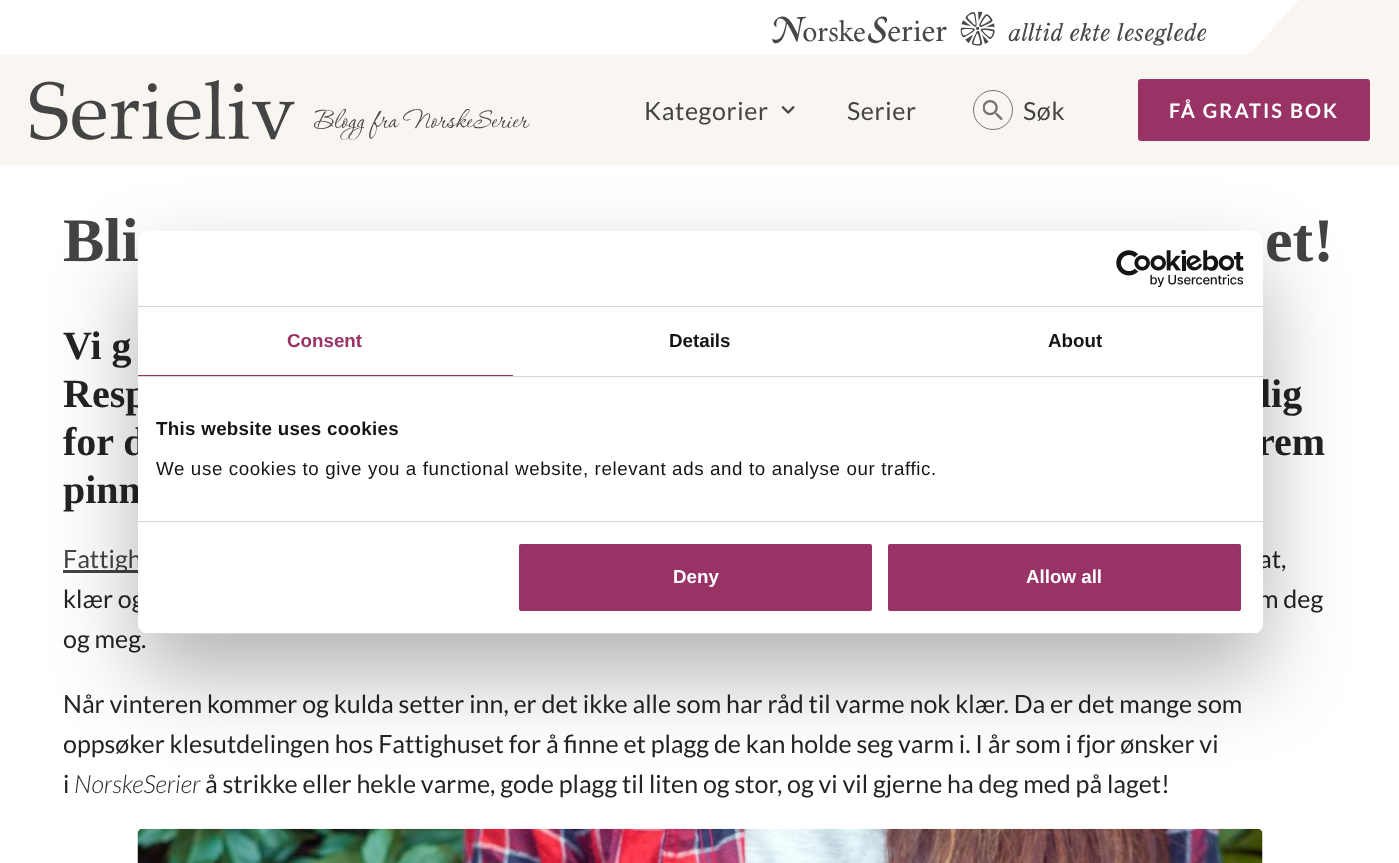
<svg xmlns="http://www.w3.org/2000/svg" width="1399" height="863">
<defs>
<clipPath id="clip1"><rect x="138" y="231" width="1125" height="403" rx="10"/></clipPath>
</defs>
<rect width="100%" height="100%" fill="#fff"/>
<rect width="1399" height="165" fill="#f9f6f1"/>
<rect width="700" height="55" fill="#fff"/>
<image x="700" y="0" width="598" height="55" href="media/1.png"/>
<image x="30" y="80" width="265" height="60" href="media/2.png"/>
<image x="314" y="109" width="216" height="31" href="media/3.png"/>
<text x="644" y="120" style="font-family:Lato;font-size:25px;letter-spacing:0.62px;fill:#444">Kategorier</text>
<image x="781" y="106" width="14" height="8" href="media/4.png"/>
<text x="847" y="120" style="font-family:Lato;font-size:25px;letter-spacing:0.62px;fill:#444">Serier</text>
<image x="983" y="100" width="20" height="20" href="media/5.png"/>
<circle cx="993" cy="110" r="19.5" fill="none" stroke="#747474"/>
<text x="1023" y="120" style="font-family:Lato;font-size:25px;letter-spacing:0.62px;fill:#444">Søk</text>
<rect x="1138.5" y="79.5" width="231" height="61" rx="2" fill="#936" stroke="#936"/>
<text x="1169" y="118" style="font-family:Lato;font-size:20px;font-weight:bold;letter-spacing:2px;fill:#fff">FÅ GRATIS BOK</text>
<text x="63" y="261" style="font-family:Liberation Serif;font-size:62px;font-weight:bold;fill:#444">Bli</text>
<text x="1265" y="261" style="font-family:Liberation Serif;font-size:62px;font-weight:bold;fill:#444">et!</text>
<text x="63" y="359" style="font-family:Liberation Serif;font-size:40px;font-weight:bold;fill:#242424">Vi g</text>
<text x="63" y="407" style="font-family:Liberation Serif;font-size:40px;font-weight:bold;fill:#242424">Resp</text>
<text x="1260" y="407" style="font-family:Liberation Serif;font-size:40px;font-weight:bold;fill:#242424">lig</text>
<text x="63" y="455" style="font-family:Liberation Serif;font-size:40px;font-weight:bold;fill:#242424">for d</text>
<text x="1257" y="455" style="font-family:Liberation Serif;font-size:40px;font-weight:bold;fill:#242424">rem</text>
<text x="63" y="503" style="font-family:Liberation Serif;font-size:40px;font-weight:bold;fill:#242424">pinn</text>
<rect x="63" y="570" width="75" height="3" fill="#444"/>
<text x="63" y="568" style="font-family:Lato;font-size:25px;fill:#444">Fattigh</text>
<text x="1259" y="568" style="font-family:Lato;font-size:25px;fill:#242424">at,</text>
<text x="63" y="608" style="font-family:Lato;font-size:25px;fill:#242424">klær og</text>
<text x="1258" y="608" style="font-family:Lato;font-size:25px;fill:#242424">m deg</text>
<text x="63" y="648" style="font-family:Lato;font-size:25px;fill:#242424">og meg.</text>
<text x="63" y="713" style="font-family:Lato;font-size:25px;fill:#242424">Når vinteren kommer og kulda setter inn, er det ikke alle som har råd til varme nok klær. Da er det mange som</text>
<text x="63" y="753" style="font-family:Lato;font-size:25px;fill:#242424">oppsøker klesutdelingen hos Fattighuset for å finne et plagg de kan holde seg varm i. I år som i fjor ønsker vi</text>
<text x="63" y="793" style="font-family:Lato;font-size:25px;fill:#242424">i</text>
<text x="74" y="793" style="font-family:Lato;font-size:25px;font-weight:300;font-style:italic;fill:#242424">NorskeSerier</text>
<text x="205" y="793" style="font-family:Lato;font-size:25px;fill:#242424">å strikke eller hekle varme, gode plagg til liten og stor, og vi vil gjerne ha deg med på laget!</text>
<image x="137" y="828" width="1126" height="35" href="media/6.png"/>
<rect x="138" y="271" width="1125" height="403" rx="10" fill="#0000004d" filter="blur(42.5px)"/>
<rect x="138" y="231" width="1125" height="403" rx="10" fill="#fff"/>
<rect x="138" y="306" width="1125" height="1" fill="#d6d6d6"/>
<image x="1116" y="250" width="128" height="38" href="media/7.png"/>
<rect x="138" y="376" width="1125" height="1" fill="#d6d6d6"/>
<rect x="138" y="375" width="375" height="1" fill="#936"/>
<text x="287" y="347" style="font-family:Liberation Sans;font-size:18.75px;font-weight:bold;fill:#936">Consent</text>
<text x="669" y="347" style="font-family:Liberation Sans;font-size:18.75px;font-weight:bold;fill:#141414">Details</text>
<text x="1048" y="347" style="font-family:Liberation Sans;font-size:18.75px;font-weight:bold;fill:#141414">About</text>
<rect x="138" y="521" width="1125" height="1" fill="#d6d6d6"/>
<text x="156" y="435" style="font-family:Liberation Sans;font-size:18.75px;font-weight:bold;letter-spacing:0.3px;fill:#141414">This website uses cookies</text>
<text x="156" y="475" style="font-family:Liberation Sans;font-size:18.75px;letter-spacing:0.62px;fill:#141414">We use cookies to give you a functional website, relevant ads and to analyse our traffic.</text>
<g clip-path="url(#clip1)">
<rect x="138" y="633" width="1125" height="1" fill="#d6d6d6"/>
</g>
<rect x="517.5" y="542.5" width="356" height="70" rx="3.5" fill="#936" stroke="#fff" stroke-width="3"/>
<text x="673" y="583" style="font-family:Liberation Sans;font-size:18.75px;font-weight:bold;fill:#fff">Deny</text>
<rect x="886.5" y="542.5" width="356" height="70" rx="3.5" fill="#936" stroke="#fff" stroke-width="3"/>
<text x="1026" y="583" style="font-family:Liberation Sans;font-size:18.75px;font-weight:bold;fill:#fff">Allow all</text>
</svg>
